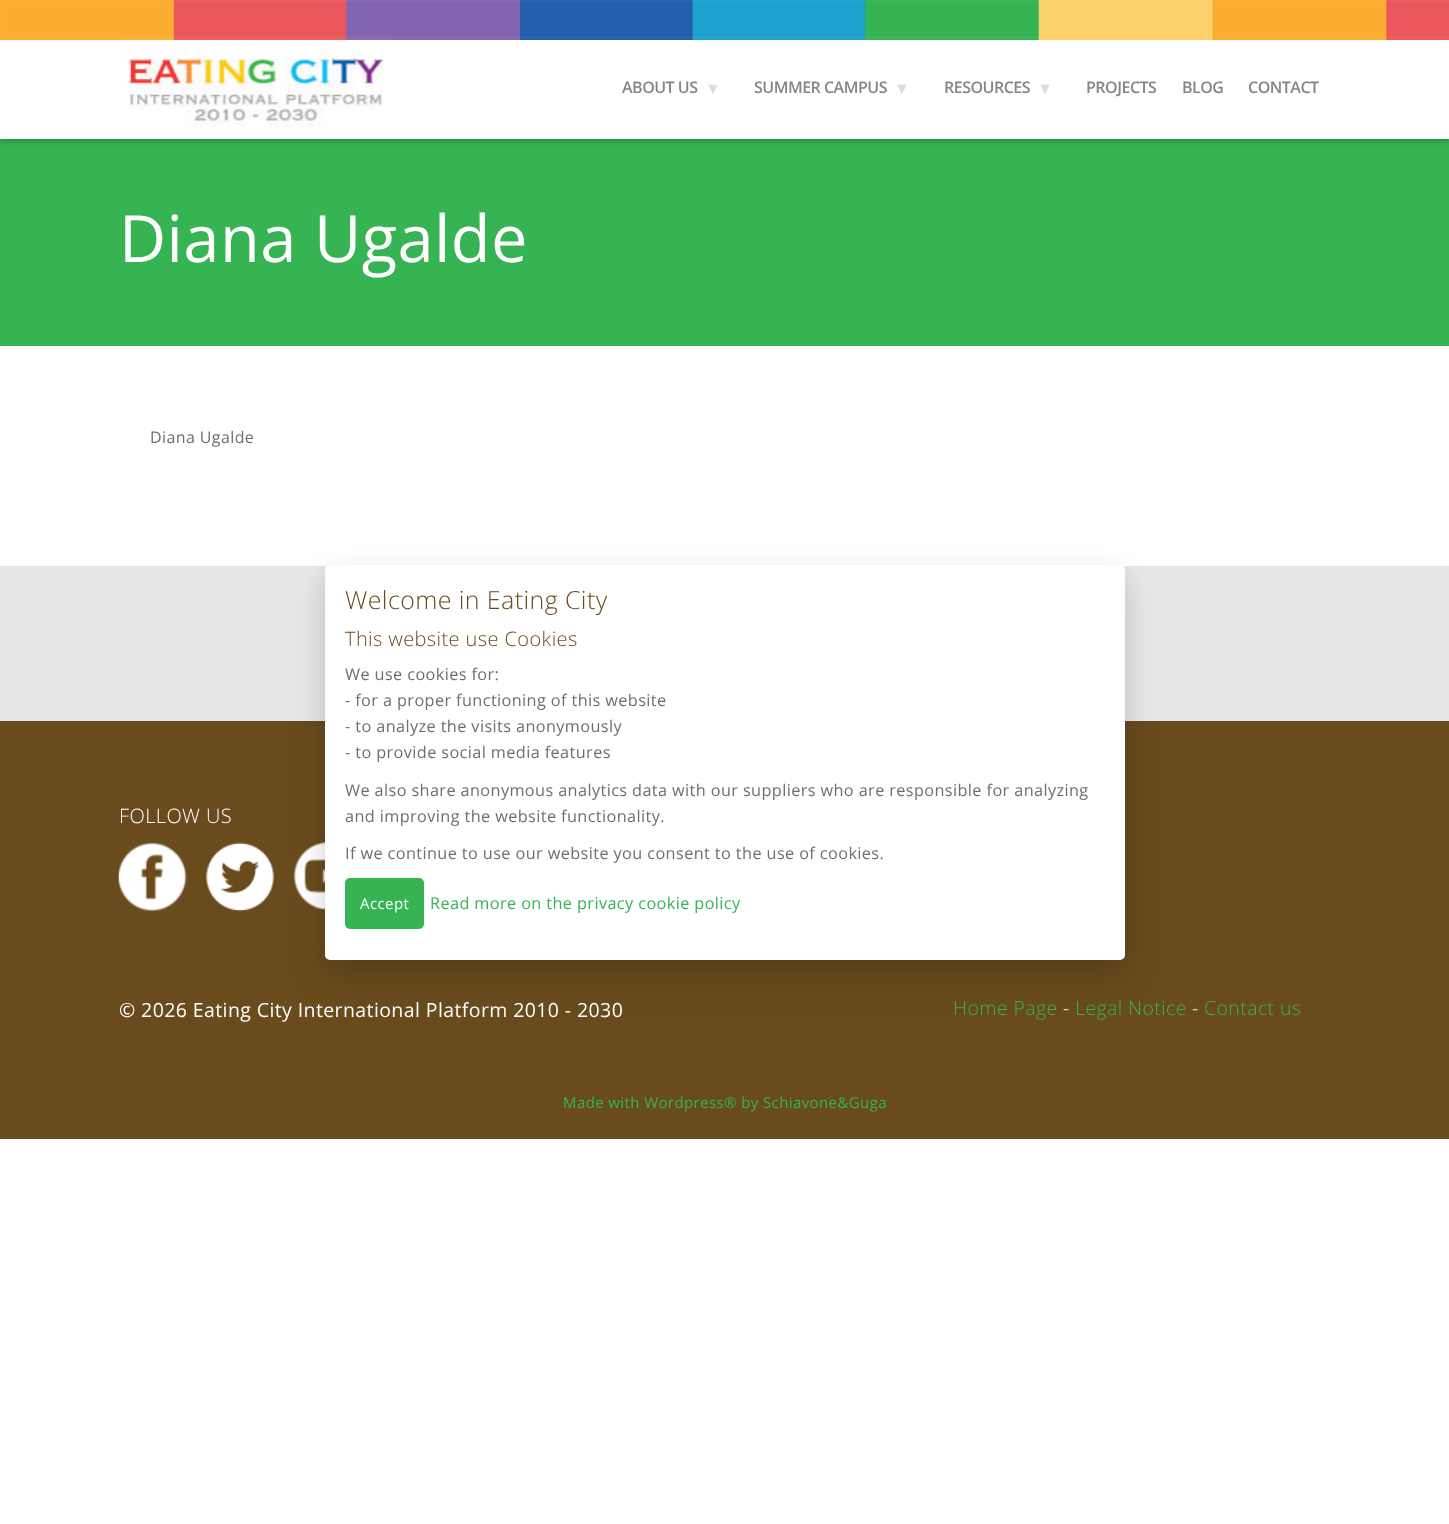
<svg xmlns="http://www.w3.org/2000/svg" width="1449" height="1524">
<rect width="100%" height="100%" fill="#fff"/>
<rect y="139" width="1449" height="207" fill="#36b453"/>
<rect y="3" width="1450" height="138" fill="#00000042" filter="blur(3px)"/>
<rect y="40" width="1449" height="99" fill="#fff"/>
<image x="0" y="0" width="1449" height="40" href="media/1.png"/>
<image x="119" y="39" width="275" height="88" href="media/2.png"/>
<text x="622" y="93" style="font-family:Open Sans;font-size:16px;font-weight:600;letter-spacing:-0.5px;fill:#848588">ABOUT US</text>
<text x="705" y="94" style="font-family:Liberation Serif;font-size:16px;font-weight:bold;letter-spacing:-0.5px;fill:#ddd">▼</text>
<text x="754" y="93" style="font-family:Open Sans;font-size:16px;font-weight:600;letter-spacing:-0.5px;fill:#848588">SUMMER CAMPUS</text>
<text x="894" y="94" style="font-family:Liberation Serif;font-size:16px;font-weight:bold;letter-spacing:-0.5px;fill:#ddd">▼</text>
<text x="944" y="93" style="font-family:Open Sans;font-size:16px;font-weight:600;letter-spacing:-0.5px;fill:#848588">RESOURCES</text>
<text x="1037" y="94" style="font-family:Liberation Serif;font-size:16px;font-weight:bold;letter-spacing:-0.5px;fill:#ddd">▼</text>
<text x="1086" y="93" style="font-family:Open Sans;font-size:16px;font-weight:600;letter-spacing:-0.5px;fill:#848588">PROJECTS</text>
<text x="1182" y="93" style="font-family:Open Sans;font-size:16px;font-weight:600;letter-spacing:-0.5px;fill:#848588">BLOG</text>
<text x="1248" y="93" style="font-family:Open Sans;font-size:16px;font-weight:600;letter-spacing:-0.5px;fill:#848588">CONTACT</text>
<text x="119" y="262" style="font-family:Open Sans;font-size:65px;letter-spacing:0.4px;fill:#fff">Diana Ugalde</text>
<text x="150" y="443" style="font-family:Open Sans;font-size:16px;letter-spacing:0.4px;fill:#6d6e71">Diana Ugalde</text>
<rect y="566" width="1449" height="155" fill="#e7e7e9"/>
<rect y="721" width="1449" height="418" fill="#694b1e"/>
<text x="119" y="823" style="font-family:Open Sans;font-size:20px;font-weight:300;letter-spacing:0.4px;fill:#fff">FOLLOW US</text>
<image x="118" y="842" width="69" height="70" href="media/3.png"/>
<image x="206" y="842" width="68" height="70" href="media/4.png"/>
<image x="293" y="842" width="32" height="68" href="media/5.png"/>
<text x="119" y="1017" style="font-family:Open Sans;font-size:19.5px;letter-spacing:0.4px;fill:#fff">© 2026 Eating City International Platform 2010 - 2030</text>
<text x="953" y="1015" style="font-family:Open Sans;font-size:19.5px;font-weight:300;letter-spacing:0.4px;fill:#36b453">Home Page</text>
<text x="1063" y="1015" style="font-family:Open Sans;font-size:19.5px;font-weight:300;letter-spacing:0.4px;fill:#fff">-</text>
<text x="1075" y="1015" style="font-family:Open Sans;font-size:19.5px;font-weight:300;letter-spacing:0.4px;fill:#36b453">Legal Notice</text>
<text x="1192" y="1015" style="font-family:Open Sans;font-size:19.5px;font-weight:300;letter-spacing:0.4px;fill:#fff">-</text>
<text x="1204" y="1015" style="font-family:Open Sans;font-size:19.5px;font-weight:300;letter-spacing:0.4px;fill:#36b453">Contact us</text>
<text x="563" y="1108" style="font-family:Open Sans;font-size:15px;letter-spacing:0.4px;fill:#36b453">Made with Wordpress® by Schiavone&amp;Guga</text>
<rect x="325" y="571" width="800" height="395" rx="5" fill="#00000014" filter="blur(9.5px)"/>
<rect x="325" y="584" width="800" height="395" rx="5" fill="#0000001c" filter="blur(19px)"/>
<rect x="325" y="565" width="800" height="395" rx="5" fill="#fff"/>
<text x="345" y="609" style="font-family:Open Sans;font-size:25px;font-weight:300;letter-spacing:0.4px;fill:#694b1e">Welcome in Eating City</text>
<text x="345" y="646" style="font-family:Open Sans;font-size:20px;font-weight:300;letter-spacing:0.4px;fill:#694b1e">This website use Cookies</text>
<text x="345" y="680" style="font-family:Open Sans;font-size:16.25px;letter-spacing:0.4px;fill:#6d6e71">We use cookies for:</text>
<text x="345" y="706" style="font-family:Open Sans;font-size:16.25px;letter-spacing:0.4px;fill:#6d6e71">- for a proper functioning of this website</text>
<text x="345" y="732" style="font-family:Open Sans;font-size:16.25px;letter-spacing:0.4px;fill:#6d6e71">- to analyze the visits anonymously</text>
<text x="345" y="758" style="font-family:Open Sans;font-size:16.25px;letter-spacing:0.4px;fill:#6d6e71">- to provide social media features</text>
<text x="345" y="796" style="font-family:Open Sans;font-size:16.25px;letter-spacing:0.4px;fill:#6d6e71">We also share anonymous analytics data with our suppliers who are responsible for analyzing</text>
<text x="345" y="822" style="font-family:Open Sans;font-size:16.25px;letter-spacing:0.4px;fill:#6d6e71">and improving the website functionality.</text>
<text x="345" y="859" style="font-family:Open Sans;font-size:16.25px;letter-spacing:0.4px;fill:#6d6e71">If we continue to use our website you consent to the use of cookies.</text>
<rect x="345" y="878" width="79" height="51" rx="5" fill="#36b453"/>
<text x="360" y="909" style="font-family:Open Sans;font-size:15px;letter-spacing:0.4px;fill:#fff">Accept</text>
<text x="430" y="909" style="font-family:Open Sans;font-size:16.25px;letter-spacing:0.4px;fill:#36b453">Read more on the privacy cookie policy</text>
</svg>
